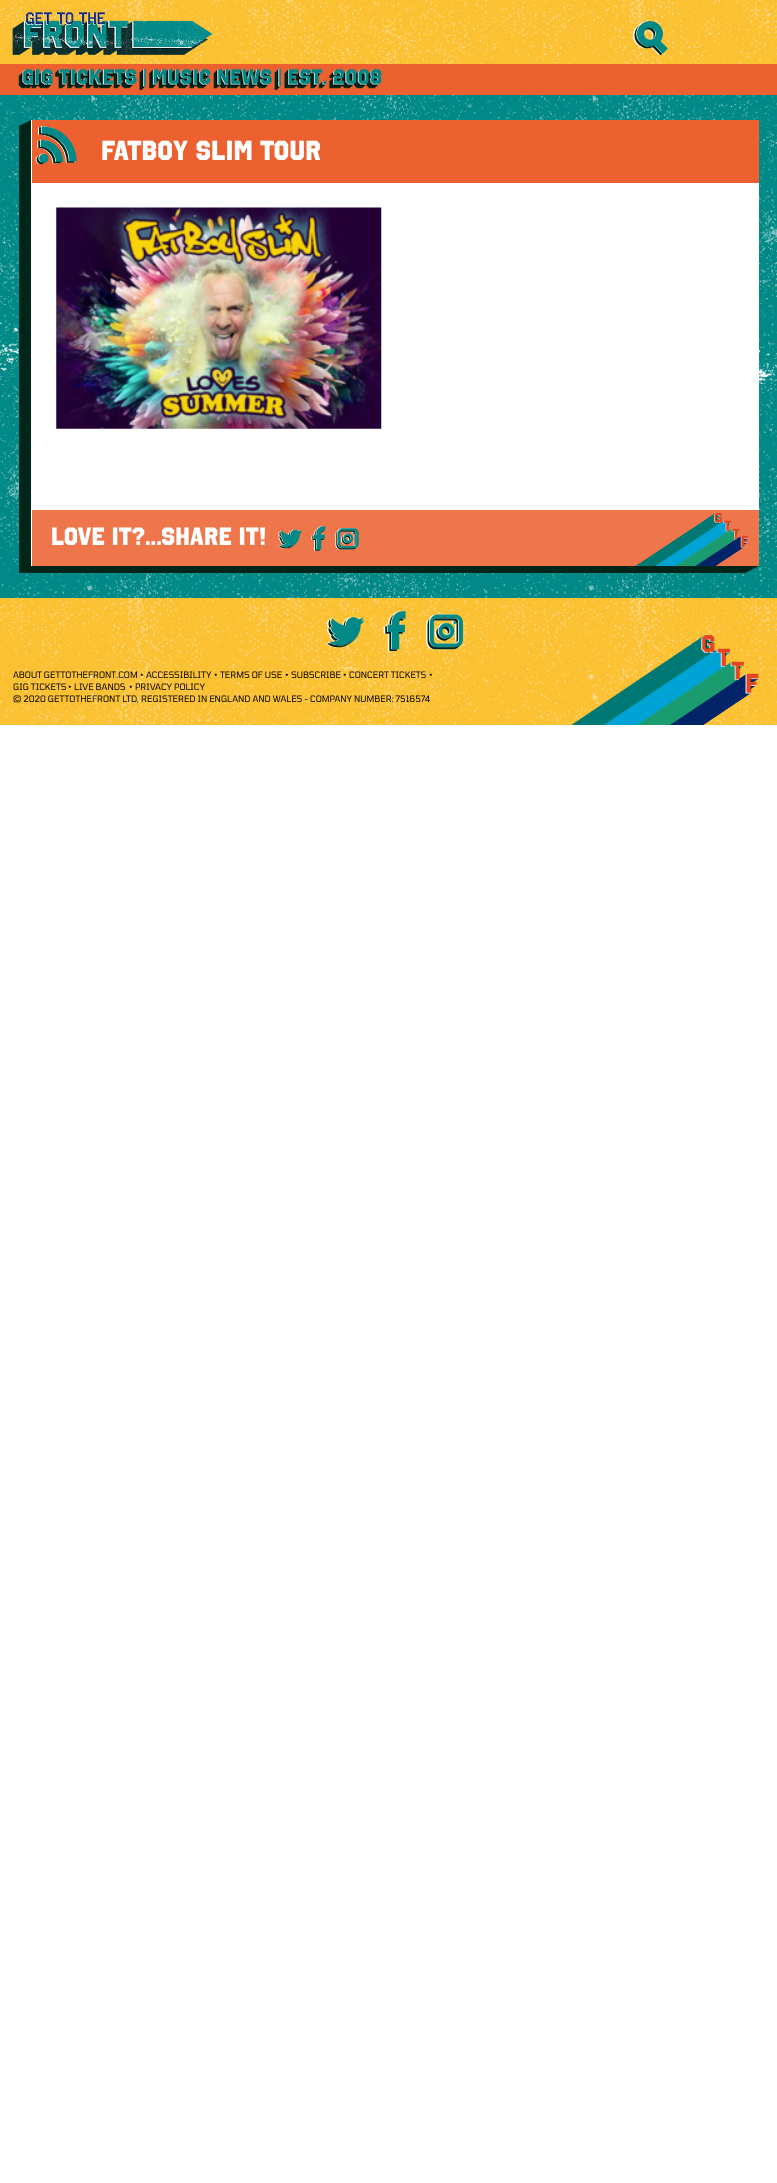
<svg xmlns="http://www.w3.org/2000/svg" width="777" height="2183">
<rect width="100%" height="100%" fill="#fff"/>
<rect y="95" width="777" height="503" fill="#008986"/>
<image x="0" y="95" width="777" height="503" href="media/1.png"/>
<rect width="777" height="64" fill="#fcc132"/>
<image x="0" y="0" width="777" height="64" href="media/2.png"/>
<image x="12" y="12" width="201" height="43" href="media/3.png"/>
<image x="632" y="21" width="36" height="35" href="media/4.png"/>
<rect y="64" width="777" height="31" fill="#ec612f"/>
<image x="18" y="68" width="364" height="22" href="media/5.png"/>
<path d="M19 126v447h727v-7h-715v-440z" fill="#012519"/>
<rect x="31" y="183" width="728" height="327" fill="#fff"/>
<path d="M31 126h-12l12-6z" fill="#012519"/>
<rect x="32" y="120" width="727" height="63" fill="#ec612f"/>
<rect x="31" y="120" width="1" height="63" fill="#fff"/>
<image x="35" y="126" width="42" height="39" href="media/6.png"/>
<text x="101" y="160" style="font-family:'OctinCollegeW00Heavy';font-size:27.5px;font-weight:900;fill:#fff">FATBOY SLIM TOUR</text>
<image x="56" y="207" width="326" height="222" href="media/7.png"/>
<rect x="32" y="510" width="727" height="56" fill="#ef764b"/>
<rect x="31" y="510" width="1" height="56" fill="#fff"/>
<text x="51" y="545" style="font-family:'OctinCollegeW00Heavy';font-size:25px;font-weight:900;fill:#fff">LOVE IT?...SHARE IT!</text>
<image x="277" y="529" width="25" height="20" href="media/8.png"/>
<image x="311" y="526" width="15" height="25" href="media/9.png"/>
<image x="335" y="528" width="24" height="22" href="media/10.png"/>
<image x="635" y="513" width="114" height="53" href="media/11.png"/>
<path d="M746 566h13l-13 6.5z" fill="#012519"/>
<rect y="598" width="777" height="127" fill="#fcc132"/>
<image x="0" y="597" width="777" height="128" href="media/12.png"/>
<image x="325" y="617" width="39" height="31" href="media/13.png"/>
<image x="383" y="611" width="23" height="40" href="media/14.png"/>
<image x="425" y="614" width="38" height="36" href="media/15.png"/>
<text x="13" y="678" style="font-family:Tomorrow;font-size:8.75px;fill:#000">ABOUT GETTOTHEFRONT.COM</text>
<text x="140" y="678" style="font-family:Tomorrow;font-size:8.75px;fill:#000">•</text>
<text x="146" y="678" style="font-family:Tomorrow;font-size:8.75px;fill:#000">ACCESSIBILITY</text>
<text x="214" y="678" style="font-family:Tomorrow;font-size:8.75px;fill:#000">•</text>
<text x="220" y="678" style="font-family:Tomorrow;font-size:8.75px;fill:#000">TERMS OF USE</text>
<text x="285" y="678" style="font-family:Tomorrow;font-size:8.75px;fill:#000">•</text>
<text x="291" y="678" style="font-family:Tomorrow;font-size:8.75px;fill:#000">SUBSCRIBE</text>
<text x="343" y="678" style="font-family:Tomorrow;font-size:8.75px;fill:#000">•</text>
<text x="349" y="678" style="font-family:Tomorrow;font-size:8.75px;fill:#000">CONCERT TICKETS</text>
<text x="429" y="678" style="font-family:Tomorrow;font-size:8.75px;fill:#000">•</text>
<text x="13" y="690" style="font-family:Tomorrow;font-size:8.75px;fill:#000">GIG TICKETS</text>
<text x="68" y="690" style="font-family:Tomorrow;font-size:8.75px;fill:#000">•</text>
<text x="74" y="690" style="font-family:Tomorrow;font-size:8.75px;fill:#000">LIVE BANDS</text>
<text x="129" y="690" style="font-family:Tomorrow;font-size:8.75px;fill:#000">•</text>
<text x="135" y="690" style="font-family:Tomorrow;font-size:8.75px;fill:#000">PRIVACY POLICY</text>
<text x="13" y="702" style="font-family:Tomorrow;font-size:8.75px;fill:#000">© 2020 GETTOTHEFRONT LTD, REGISTERED IN ENGLAND AND WALES - COMPANY NUMBER: 7516574</text>
<image x="571" y="635" width="188" height="90" href="media/16.png"/>
</svg>
